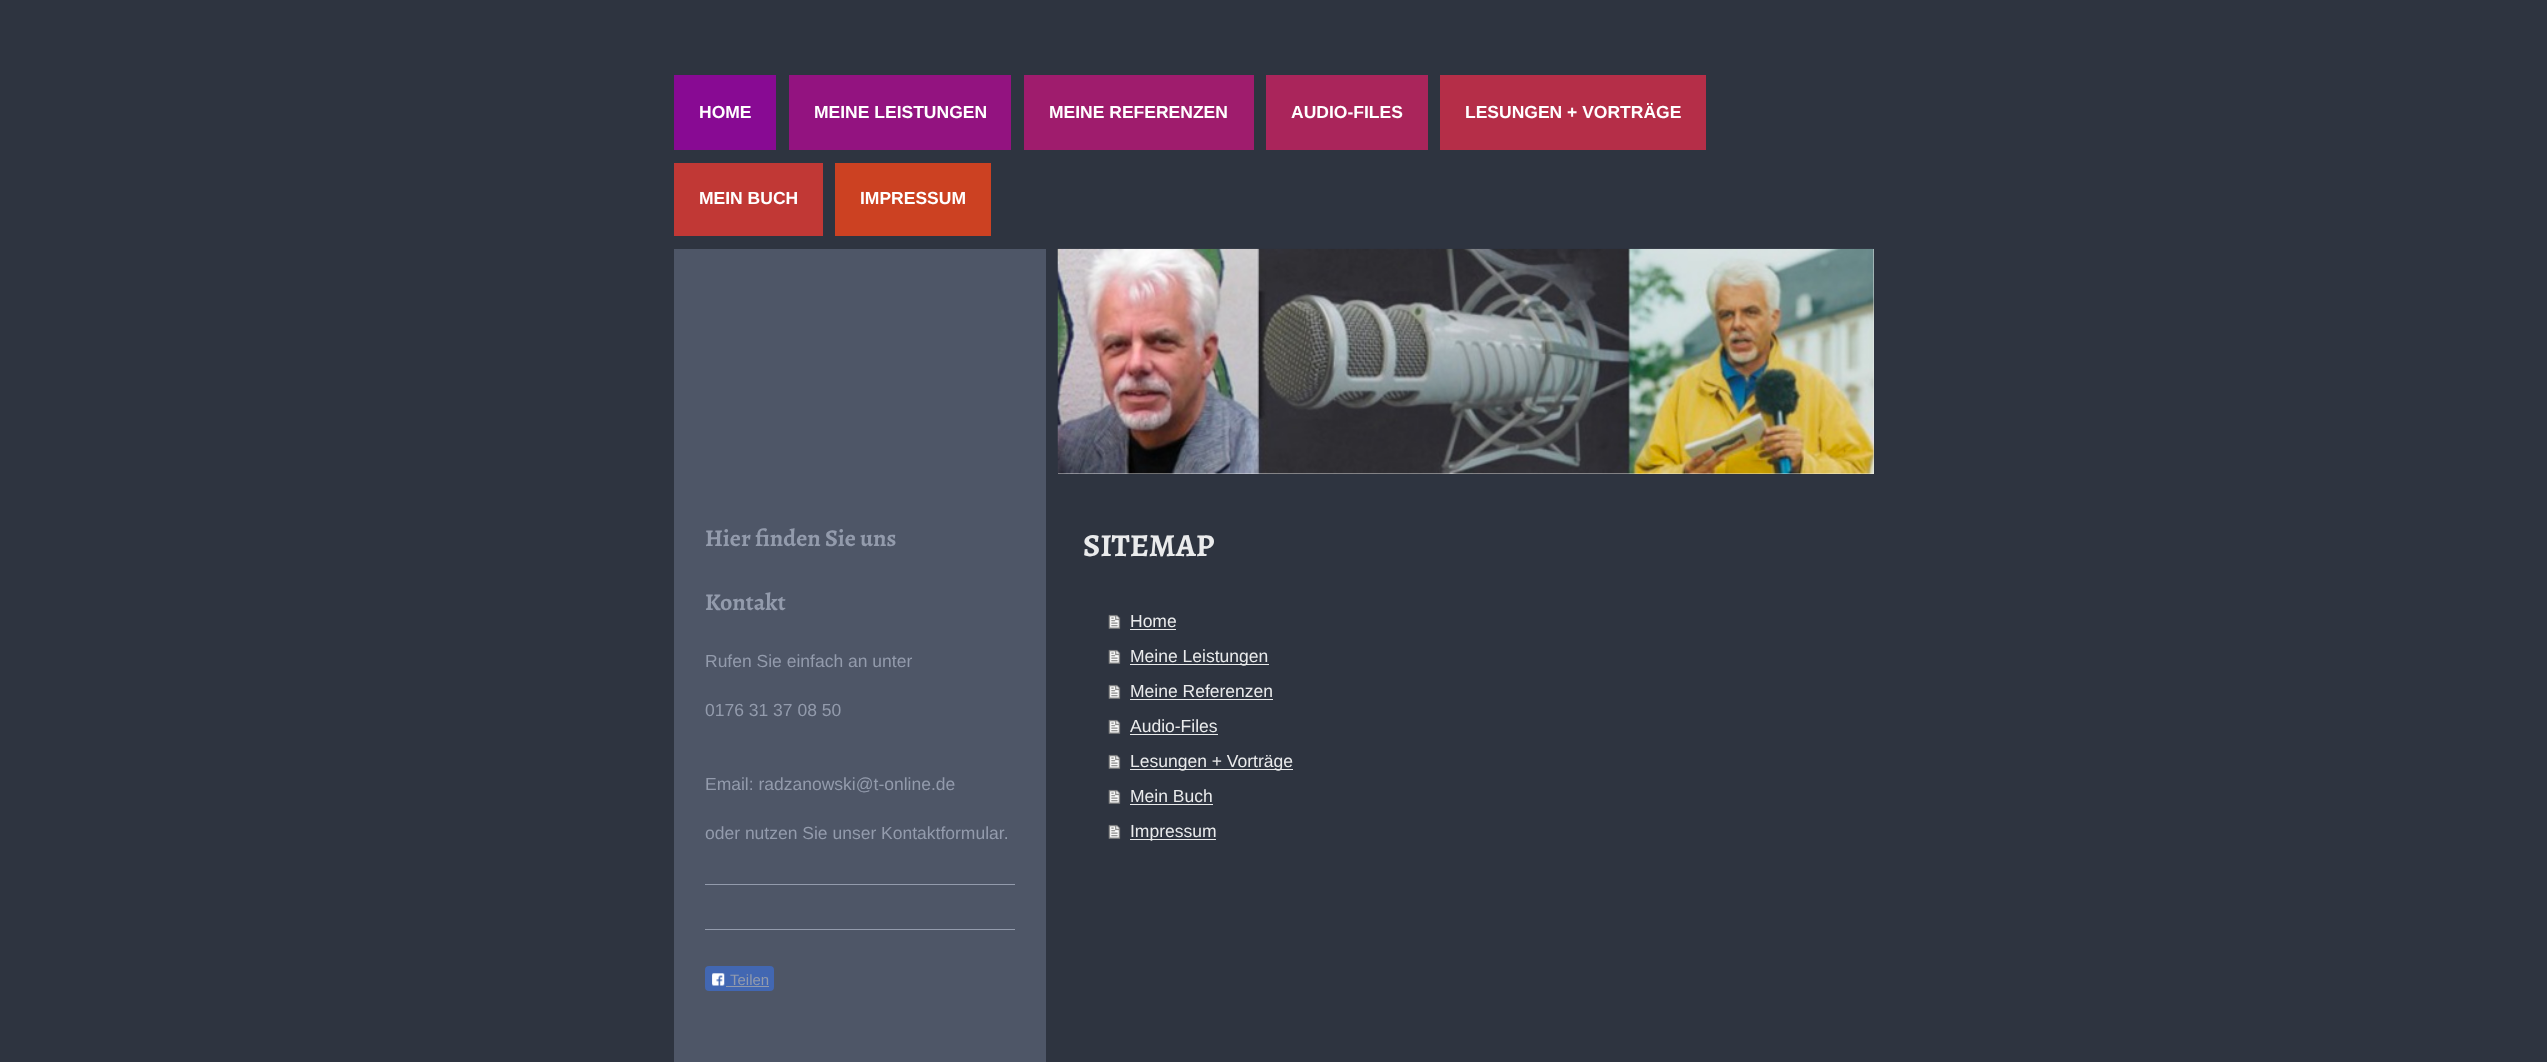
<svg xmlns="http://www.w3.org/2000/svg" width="2547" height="1062">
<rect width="100%" height="100%" fill="#2e3440"/>
<rect x="674" y="75" width="102" height="75" fill="#880a93"/>
<text x="699" y="118" style="font-family:Liberation Sans;font-size:17.5px;font-weight:bold;fill:#fff">HOME</text>
<rect x="789" y="75" width="222" height="75" fill="#931380"/>
<text x="814" y="118" style="font-family:Liberation Sans;font-size:17.5px;font-weight:bold;fill:#fff">MEINE LEISTUNGEN</text>
<rect x="1024" y="75" width="230" height="75" fill="#9f1c6d"/>
<text x="1049" y="118" style="font-family:Liberation Sans;font-size:17.5px;font-weight:bold;fill:#fff">MEINE REFERENZEN</text>
<rect x="1266" y="75" width="162" height="75" fill="#aa255b"/>
<text x="1291" y="118" style="font-family:Liberation Sans;font-size:17.5px;font-weight:bold;fill:#fff">AUDIO-FILES</text>
<rect x="1440" y="75" width="266" height="75" fill="#b52e48"/>
<text x="1465" y="118" style="font-family:Liberation Sans;font-size:17.5px;font-weight:bold;fill:#fff">LESUNGEN + VORTRÄGE</text>
<rect x="674" y="163" width="149" height="73" fill="#c13835"/>
<text x="699" y="204" style="font-family:Liberation Sans;font-size:17.5px;font-weight:bold;fill:#fff">MEIN BUCH</text>
<rect x="835" y="163" width="156" height="73" fill="#cc4122"/>
<text x="860" y="204" style="font-family:Liberation Sans;font-size:17.5px;font-weight:bold;fill:#fff">IMPRESSUM</text>
<rect x="674" y="249" width="372" height="813" fill="#4e5667"/>
<text x="705" y="546" style="font-family:Alegreya;font-size:24px;font-weight:bold;fill:#939bac">Hier finden Sie uns</text>
<text x="705" y="610" style="font-family:Alegreya;font-size:24px;font-weight:bold;fill:#939bac">Kontakt</text>
<text x="705" y="667" style="font-family:Liberation Sans;font-size:17.5px;fill:#939bac">Rufen Sie einfach an unter</text>
<text x="705" y="716" style="font-family:Liberation Sans;font-size:17.5px;fill:#939bac">0176 31 37 08 50</text>
<text x="705" y="790" style="font-family:Liberation Sans;font-size:17.5px;fill:#939bac">Email: radzanowski@t-online.de</text>
<text x="705" y="839" style="font-family:Liberation Sans;font-size:17.5px;fill:#939bac">oder nutzen Sie unser Kontaktformular.</text>
<rect x="705" y="884" width="310" height="1" fill="#939bac"/>
<rect x="705" y="929" width="310" height="1" fill="#939bac"/>
<rect x="705" y="966" width="69" height="25" rx="4" fill="#4267b2"/>
<image x="712" y="973" width="13" height="13" href="media/1.png"/>
<text x="730" y="985" style="font-family:Liberation Sans;font-size:15px;fill:#939bac">Teilen</text>
<rect x="726" y="986" width="43" height="1" fill="#939bac"/>
<rect x="1058" y="249" width="816" height="225" fill="#eee"/>
<image x="1057" y="248" width="817" height="226" href="media/2.png"/>
<text x="1083" y="556" style="font-family:Alegreya;font-size:32px;font-weight:bold;fill:#eaebec">SITEMAP</text>
<image x="1108" y="614" width="13" height="15" href="media/3.png"/>
<text x="1130" y="627" style="font-family:Liberation Sans;font-size:17.5px;fill:#eaebec">Home</text>
<rect x="1130" y="629" width="46" height="1" fill="#eaebec"/>
<image x="1108" y="649" width="13" height="15" href="media/3.png"/>
<rect x="1130" y="664" width="139" height="1" fill="#eaebec"/>
<text x="1130" y="662" style="font-family:Liberation Sans;font-size:17.5px;fill:#eaebec">Meine Leistungen</text>
<image x="1108" y="684" width="13" height="15" href="media/3.png"/>
<text x="1130" y="697" style="font-family:Liberation Sans;font-size:17.5px;fill:#eaebec">Meine Referenzen</text>
<rect x="1130" y="699" width="143" height="1" fill="#eaebec"/>
<image x="1108" y="719" width="13" height="15" href="media/3.png"/>
<text x="1130" y="732" style="font-family:Liberation Sans;font-size:17.5px;fill:#eaebec">Audio-Files</text>
<rect x="1130" y="734" width="88" height="1" fill="#eaebec"/>
<image x="1108" y="754" width="13" height="15" href="media/3.png"/>
<rect x="1130" y="769" width="163" height="1" fill="#eaebec"/>
<text x="1130" y="767" style="font-family:Liberation Sans;font-size:17.5px;fill:#eaebec">Lesungen + Vorträge</text>
<image x="1108" y="789" width="13" height="15" href="media/3.png"/>
<text x="1130" y="802" style="font-family:Liberation Sans;font-size:17.5px;fill:#eaebec">Mein Buch</text>
<rect x="1130" y="804" width="83" height="1" fill="#eaebec"/>
<image x="1108" y="824" width="13" height="15" href="media/3.png"/>
<rect x="1130" y="839" width="86" height="1" fill="#eaebec"/>
<text x="1130" y="837" style="font-family:Liberation Sans;font-size:17.5px;fill:#eaebec">Impressum</text>
</svg>
